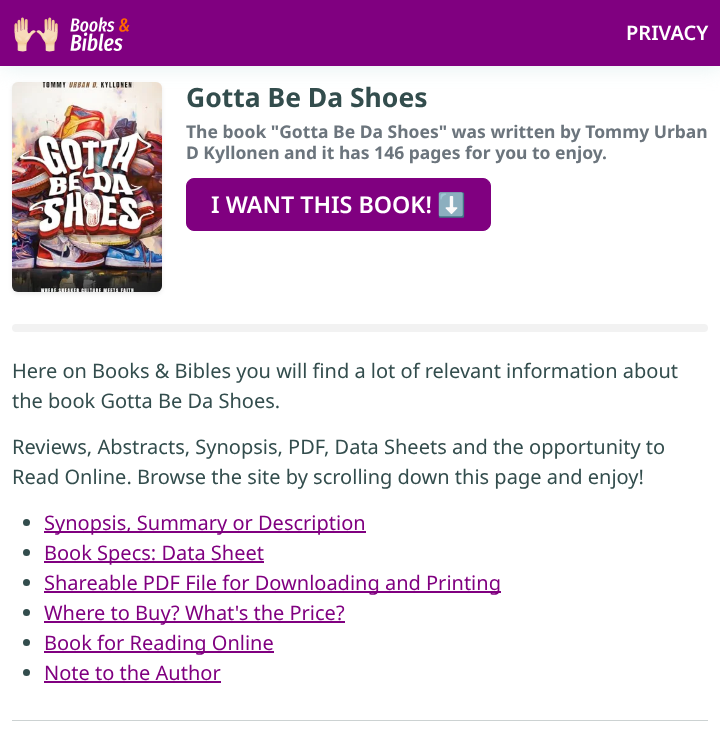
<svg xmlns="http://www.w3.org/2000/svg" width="720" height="748">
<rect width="100%" height="100%" fill="#fff"/>
<rect x="2" y="2" width="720" height="66" fill="#cce6e580" filter="blur(10px)"/>
<rect width="720" height="66" fill="#800080"/>
<image x="14" y="17" width="116" height="35" href="media/1.png"/>
<text x="626" y="40" style="font-family:Noto Sans;font-size:20px;font-weight:600;fill:#fff">PRIVACY</text>
<rect x="12" y="84" width="150" height="210" rx="6" fill="#00000012" filter="blur(2px)"/>
<image x="12" y="82" width="150" height="210" href="media/2.png"/>
<text x="186" y="107" style="font-family:Noto Sans;font-size:26.5px;font-weight:bold;fill:#334d4d">Gotta Be Da Shoes</text>
<text x="186" y="138" style="font-family:Noto Sans;font-size:17.5px;font-weight:bold;fill:#6c757d">The book "Gotta Be Da Shoes" was written by Tommy Urban</text>
<text x="186" y="159" style="font-family:Noto Sans;font-size:17.5px;font-weight:bold;fill:#6c757d">D Kyllonen and it has 146 pages for you to enjoy.</text>
<rect x="186.5" y="178.5" width="304" height="52" rx="7.5" fill="#800080" stroke="#800080"/>
<text x="211" y="213" style="font-family:Noto Sans;font-size:23.25px;font-weight:600;fill:#fff">I WANT THIS BOOK!</text>
<text x="437" y="213" style="font-family:Noto Color Emoji;font-size:23.25px;fill:#fff">⬇️</text>
<rect x="12" y="324" width="696" height="8" rx="4" fill="#f2f2f2"/>
<text x="12" y="378" style="font-family:Noto Sans;font-size:20px;fill:#334d4d">Here on Books &amp; Bibles you will find a lot of relevant information about</text>
<text x="12" y="408" style="font-family:Noto Sans;font-size:20px;fill:#334d4d">the book Gotta Be Da Shoes.</text>
<text x="12" y="454" style="font-family:Noto Sans;font-size:20px;fill:#334d4d">Reviews, Abstracts, Synopsis, PDF, Data Sheets and the opportunity to</text>
<text x="12" y="484" style="font-family:Noto Sans;font-size:20px;fill:#334d4d">Read Online. Browse the site by scrolling down this page and enjoy!</text>
<circle cx="26.5" cy="522.5" r="3.5" fill="#334d4d"/>
<rect x="44" y="531" width="322" height="2" fill="#800080"/>
<text x="44" y="530" style="font-family:Noto Sans;font-size:20px;fill:#800080">Synopsis, Summary or Description</text>
<circle cx="26.5" cy="552.5" r="3.5" fill="#334d4d"/>
<rect x="44" y="561" width="220" height="2" fill="#800080"/>
<text x="44" y="560" style="font-family:Noto Sans;font-size:20px;fill:#800080">Book Specs: Data Sheet</text>
<circle cx="26.5" cy="582.5" r="3.5" fill="#334d4d"/>
<rect x="44" y="591" width="457" height="2" fill="#800080"/>
<text x="44" y="590" style="font-family:Noto Sans;font-size:20px;fill:#800080">Shareable PDF File for Downloading and Printing</text>
<circle cx="26.5" cy="612.5" r="3.5" fill="#334d4d"/>
<rect x="44" y="621" width="301" height="2" fill="#800080"/>
<text x="44" y="620" style="font-family:Noto Sans;font-size:20px;fill:#800080">Where to Buy? What's the Price?</text>
<circle cx="26.5" cy="642.5" r="3.5" fill="#334d4d"/>
<rect x="44" y="651" width="230" height="2" fill="#800080"/>
<text x="44" y="650" style="font-family:Noto Sans;font-size:20px;fill:#800080">Book for Reading Online</text>
<circle cx="26.5" cy="672.5" r="3.5" fill="#334d4d"/>
<text x="44" y="680" style="font-family:Noto Sans;font-size:20px;fill:#800080">Note to the Author</text>
<rect x="44" y="681" width="177" height="2" fill="#800080"/>
<rect x="12" y="720" width="696" height="1" fill="#ccd2d2"/>
</svg>
